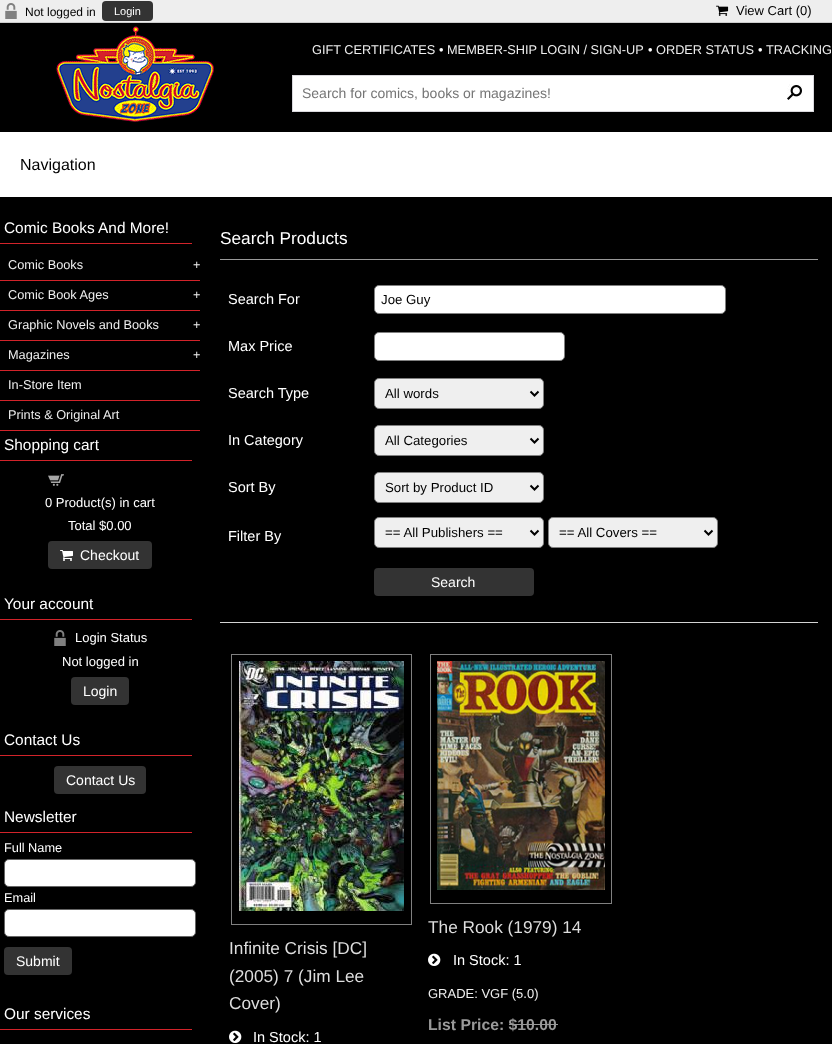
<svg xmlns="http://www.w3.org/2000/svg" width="832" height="1044">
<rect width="100%" height="100%" fill="#000"/>
<rect width="832" height="22" fill="#eee"/>
<rect y="22" width="832" height="1" fill="#ccc"/>
<image x="5" y="3" width="12" height="16" href="media/1.png"/>
<text x="25" y="16" style="font-family:Liberation Sans;font-size:12px;fill:#000">Not logged in</text>
<rect x="102" y="1" width="51" height="20" rx="4" fill="#333"/>
<text x="114" y="15" style="font-family:Liberation Sans;font-size:11px;fill:#fff">Login</text>
<image x="716" y="5" width="13" height="11" href="media/2.png"/>
<text x="736" y="15" style="font-family:Liberation Sans;font-size:13px;fill:#000">View Cart (0)</text>
<image x="56" y="26" width="158" height="96" href="media/3.png"/>
<text x="312" y="54" style="font-family:Liberation Sans;font-size:12.75px;fill:#eee">GIFT CERTIFICATES</text>
<text x="439" y="54" style="font-family:Liberation Sans;font-size:12.75px;fill:#fff">•</text>
<text x="447" y="54" style="font-family:Liberation Sans;font-size:12.75px;fill:#eee">MEMBER-SHIP LOGIN / SIGN-UP</text>
<text x="648" y="54" style="font-family:Liberation Sans;font-size:12.75px;fill:#fff">•</text>
<text x="656" y="54" style="font-family:Liberation Sans;font-size:12.75px;fill:#eee">ORDER STATUS</text>
<text x="758" y="54" style="font-family:Liberation Sans;font-size:12.75px;fill:#fff">•</text>
<text x="766" y="54" style="font-family:Liberation Sans;font-size:12.75px;fill:#eee">TRACKING</text>
<rect x="292.5" y="75.5" width="521" height="36" fill="#fff" stroke="#d9d8dd"/>
<text x="302" y="98" style="font-family:Liberation Sans;font-size:14px;fill:#757575">Search for comics, books or magazines!</text>
<image x="787" y="84" width="16" height="16" href="media/4.png"/>
<rect y="132" width="832" height="65" fill="#fff"/>
<text x="20" y="170" style="font-family:Liberation Sans;font-size:16px;fill:#000">Navigation</text>
<rect y="243" width="192" height="1" fill="#d2232a"/>
<text x="4" y="233" style="font-family:Liberation Sans;font-size:15.4px;fill:#fff">Comic Books And More!</text>
<rect y="280" width="200" height="1" fill="#d2232a"/>
<text x="8" y="269" style="font-family:Liberation Sans;font-size:12.75px;fill:#eee">Comic Books</text>
<text x="193" y="269" style="font-family:Liberation Sans;font-size:12.75px;fill:#eee">+</text>
<rect y="310" width="200" height="1" fill="#d2232a"/>
<text x="8" y="299" style="font-family:Liberation Sans;font-size:12.75px;fill:#eee">Comic Book Ages</text>
<text x="193" y="299" style="font-family:Liberation Sans;font-size:12.75px;fill:#eee">+</text>
<rect y="340" width="200" height="1" fill="#d2232a"/>
<text x="8" y="329" style="font-family:Liberation Sans;font-size:12.75px;fill:#eee">Graphic Novels and Books</text>
<text x="193" y="329" style="font-family:Liberation Sans;font-size:12.75px;fill:#eee">+</text>
<rect y="370" width="200" height="1" fill="#d2232a"/>
<text x="8" y="359" style="font-family:Liberation Sans;font-size:12.75px;fill:#eee">Magazines</text>
<text x="193" y="359" style="font-family:Liberation Sans;font-size:12.75px;fill:#eee">+</text>
<rect y="400" width="200" height="1" fill="#d2232a"/>
<text x="8" y="389" style="font-family:Liberation Sans;font-size:12.75px;fill:#eee">In-Store Item</text>
<rect y="430" width="200" height="1" fill="#d2232a"/>
<text x="8" y="419" style="font-family:Liberation Sans;font-size:12.75px;fill:#eee">Prints &amp; Original Art</text>
<rect y="460" width="192" height="1" fill="#d2232a"/>
<text x="4" y="450" style="font-family:Liberation Sans;font-size:15.4px;fill:#fff">Shopping cart</text>
<image x="48" y="474" width="16" height="12" href="media/5.png"/>
<text x="45" y="507" style="font-family:Liberation Sans;font-size:13px;fill:#fff">0 Product(s) in cart</text>
<text x="68" y="530" style="font-family:Liberation Sans;font-size:13px;fill:#fff">Total $0.00</text>
<rect x="48" y="541" width="104" height="28" rx="4" fill="#333"/>
<image x="60" y="550" width="13" height="11" href="media/6.png"/>
<text x="80" y="560" style="font-family:Liberation Sans;font-size:14px;fill:#fff">Checkout</text>
<rect y="619" width="192" height="1" fill="#d2232a"/>
<text x="4" y="609" style="font-family:Liberation Sans;font-size:15.4px;fill:#fff">Your account</text>
<image x="54" y="630" width="12" height="16" href="media/7.png"/>
<text x="75" y="642" style="font-family:Liberation Sans;font-size:13px;fill:#fff">Login Status</text>
<text x="62" y="666" style="font-family:Liberation Sans;font-size:13px;fill:#fff">Not logged in</text>
<rect x="71" y="677" width="58" height="28" rx="4" fill="#333"/>
<text x="83" y="696" style="font-family:Liberation Sans;font-size:14px;fill:#fff">Login</text>
<rect y="755" width="192" height="1" fill="#d2232a"/>
<text x="4" y="745" style="font-family:Liberation Sans;font-size:15.4px;fill:#fff">Contact Us</text>
<rect x="54" y="766" width="92" height="28" rx="4" fill="#333"/>
<text x="66" y="785" style="font-family:Liberation Sans;font-size:14px;fill:#fff">Contact Us</text>
<rect y="832" width="192" height="1" fill="#d2232a"/>
<text x="4" y="822" style="font-family:Liberation Sans;font-size:15.4px;fill:#fff">Newsletter</text>
<text x="4" y="852" style="font-family:Liberation Sans;font-size:12.75px;fill:#fff">Full Name</text>
<rect x="4.5" y="859.5" width="191" height="27" rx="4.5" fill="#fff" stroke="#666"/>
<text x="4" y="902" style="font-family:Liberation Sans;font-size:12.75px;fill:#fff">Email</text>
<rect x="4.5" y="909.5" width="191" height="27" rx="4.5" fill="#fff" stroke="#666"/>
<rect x="4" y="947" width="68" height="28" rx="4" fill="#333"/>
<text x="16" y="966" style="font-family:Liberation Sans;font-size:14px;fill:#fff">Submit</text>
<rect y="1029" width="192" height="1" fill="#d2232a"/>
<text x="4" y="1019" style="font-family:Liberation Sans;font-size:15.4px;fill:#fff">Our services</text>
<rect x="220" y="259" width="598" height="1" fill="#999"/>
<text x="220" y="244" style="font-family:Liberation Sans;font-size:17.25px;fill:#fff">Search Products</text>
<text x="228" y="304" style="font-family:Liberation Sans;font-size:14.5px;fill:#fff">Search For</text>
<rect x="374.5" y="285.5" width="351" height="28" rx="4.5" fill="#fff" stroke="#808080"/>
<text x="381" y="304" style="font-family:Liberation Sans;font-size:13.25px;fill:#000">Joe Guy</text>
<text x="228" y="351" style="font-family:Liberation Sans;font-size:14.5px;fill:#fff">Max Price</text>
<rect x="374.5" y="332.5" width="190" height="28" rx="4.5" fill="#fff" stroke="#808080"/>
<text x="228" y="398" style="font-family:Liberation Sans;font-size:14.5px;fill:#fff">Search Type</text>
<rect x="374.5" y="378.5" width="169" height="30" rx="4.5" fill="#efefef" stroke="#808080"/>
<path d="M530.5 391.5l4 4l4-4" fill="none" stroke="#000" stroke-width="2"/>
<text x="385" y="398" style="font-family:Liberation Sans;font-size:13.25px;fill:#000">All words</text>
<text x="228" y="445" style="font-family:Liberation Sans;font-size:14.5px;fill:#fff">In Category</text>
<rect x="374.5" y="425.5" width="169" height="30" rx="4.5" fill="#efefef" stroke="#808080"/>
<path d="M530.5 438.5l4 4l4-4" fill="none" stroke="#000" stroke-width="2"/>
<text x="385" y="445" style="font-family:Liberation Sans;font-size:13.25px;fill:#000">All Categories</text>
<text x="228" y="492" style="font-family:Liberation Sans;font-size:14.5px;fill:#fff">Sort By</text>
<rect x="374.5" y="472.5" width="169" height="30" rx="4.5" fill="#efefef" stroke="#808080"/>
<path d="M530.5 485.5l4 4l4-4" fill="none" stroke="#000" stroke-width="2"/>
<text x="385" y="492" style="font-family:Liberation Sans;font-size:13.25px;fill:#000">Sort by Product ID</text>
<text x="228" y="541" style="font-family:Liberation Sans;font-size:14.5px;fill:#fff">Filter By</text>
<rect x="374.5" y="517.5" width="169" height="30" rx="4.5" fill="#efefef" stroke="#808080"/>
<path d="M530.5 530.5l4 4l4-4" fill="none" stroke="#000" stroke-width="2"/>
<text x="385" y="537" style="font-family:Liberation Sans;font-size:13.25px;fill:#000">== All Publishers ==</text>
<rect x="548.5" y="517.5" width="169" height="30" rx="4.5" fill="#efefef" stroke="#808080"/>
<path d="M704.5 530.5l4 4l4-4" fill="none" stroke="#000" stroke-width="2"/>
<text x="559" y="537" style="font-family:Liberation Sans;font-size:13.25px;fill:#000">== All Covers ==</text>
<rect x="374" y="568" width="160" height="28" rx="4" fill="#333"/>
<text x="431" y="587" style="font-family:Liberation Sans;font-size:14px;fill:#fff">Search</text>
<rect x="220" y="622" width="598" height="1" fill="#d3d3d3"/>
<rect x="231.5" y="654.5" width="180" height="270" fill="none" stroke="#808080"/>
<image x="239" y="661" width="165" height="250" href="media/8.png"/>
<text x="229" y="954" style="font-family:Liberation Sans;font-size:17.25px;fill:#ddd">Infinite Crisis [DC]</text>
<text x="229" y="982" style="font-family:Liberation Sans;font-size:17.25px;fill:#ddd">(2005) 7 (Jim Lee</text>
<text x="229" y="1009" style="font-family:Liberation Sans;font-size:17.25px;fill:#ddd">Cover)</text>
<image x="229" y="1030" width="13" height="13" href="media/9.png"/>
<text x="253" y="1042" style="font-family:Liberation Sans;font-size:14.5px;fill:#fff">In Stock: 1</text>
<rect x="430.5" y="654.5" width="181" height="249" fill="none" stroke="#808080"/>
<image x="437" y="661" width="168" height="229" href="media/10.png"/>
<text x="428" y="933" style="font-family:Liberation Sans;font-size:17.25px;fill:#ddd">The Rook (1979) 14</text>
<image x="428" y="953" width="13" height="13" href="media/9.png"/>
<text x="453" y="965" style="font-family:Liberation Sans;font-size:14.5px;fill:#fff">In Stock: 1</text>
<text x="428" y="998" style="font-family:Liberation Sans;font-size:13px;fill:#eee">GRADE: VGF (5.0)</text>
<text x="428" y="1030" style="font-family:Liberation Sans;font-size:15.75px;font-weight:bold;fill:#999">List Price: $10.00</text>
<rect x="509" y="1024" width="49" height="1" fill="#999"/>
</svg>
